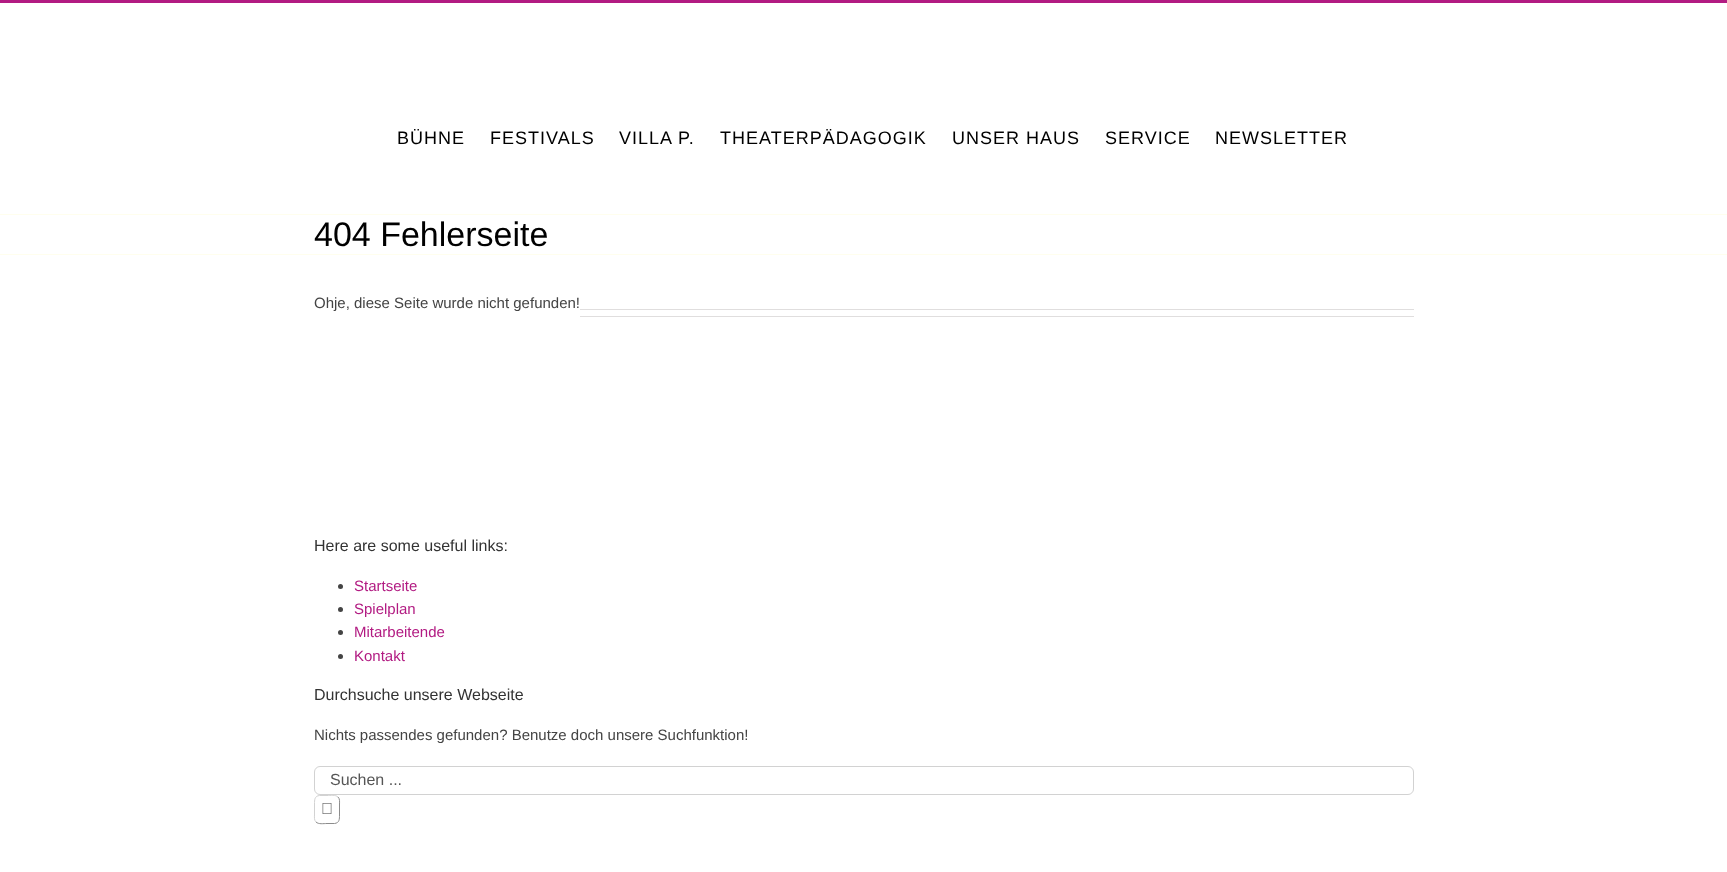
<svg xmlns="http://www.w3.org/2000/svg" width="1727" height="872">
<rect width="100%" height="100%" fill="#fff"/>
<rect width="1727" height="3" fill="#b21b82"/>
<text x="397" y="144" style="font-family:Liberation Sans;font-size:18px;letter-spacing:1px;fill:#000">BÜHNE</text>
<text x="490" y="144" style="font-family:Liberation Sans;font-size:18px;letter-spacing:1px;fill:#000">FESTIVALS</text>
<text x="619" y="144" style="font-family:Liberation Sans;font-size:18px;letter-spacing:1px;fill:#000">VILLA P.</text>
<text x="720" y="144" style="font-family:Liberation Sans;font-size:18px;letter-spacing:1px;fill:#000">THEATERPÄDAGOGIK</text>
<text x="952" y="144" style="font-family:Liberation Sans;font-size:18px;letter-spacing:1px;fill:#000">UNSER HAUS</text>
<text x="1105" y="144" style="font-family:Liberation Sans;font-size:18px;letter-spacing:1px;fill:#000">SERVICE</text>
<text x="1215" y="144" style="font-family:Liberation Sans;font-size:18px;letter-spacing:1px;fill:#000">NEWSLETTER</text>
<rect y="214" width="1727" height="1" fill="#fffeee"/>
<rect y="254" width="1727" height="1" fill="#fffeee"/>
<text x="314" y="246" style="font-family:Liberation Sans;font-size:34px;fill:#000">404 Fehlerseite</text>
<text x="314" y="308" style="font-family:Liberation Sans;font-size:15px;fill:#444">Ohje, diese Seite wurde nicht gefunden!</text>
<rect x="580" y="309" width="834" height="1" fill="#e0dede"/>
<rect x="580" y="316" width="834" height="1" fill="#e0dede"/>
<text x="314" y="551" style="font-family:Liberation Sans;font-size:16px;fill:#333">Here are some useful links:</text>
<circle cx="340.5" cy="586.5" r="2.5" fill="#444"/>
<text x="354" y="591" style="font-family:Liberation Sans;font-size:15px;fill:#b21b82">Startseite</text>
<circle cx="340.5" cy="609.5" r="2.5" fill="#444"/>
<text x="354" y="614" style="font-family:Liberation Sans;font-size:15px;fill:#b21b82">Spielplan</text>
<circle cx="340.5" cy="632.5" r="2.5" fill="#444"/>
<text x="354" y="637" style="font-family:Liberation Sans;font-size:15px;fill:#b21b82">Mitarbeitende</text>
<circle cx="340.5" cy="656.5" r="2.5" fill="#444"/>
<text x="354" y="661" style="font-family:Liberation Sans;font-size:15px;fill:#b21b82">Kontakt</text>
<text x="314" y="700" style="font-family:Liberation Sans;font-size:16px;fill:#333">Durchsuche unsere Webseite</text>
<text x="314" y="740" style="font-family:Liberation Sans;font-size:15px;fill:#444">Nichts passendes gefunden? Benutze doch unsere Suchfunktion!</text>
<rect x="314.5" y="766.5" width="1099" height="28" rx="5.5" fill="none" stroke="#d2d2d2"/>
<text x="330" y="785" style="font-family:Liberation Sans;font-size:16px;fill:#555">Suchen ...</text>
<path d="M338 797c2 2 1.5 4.5 1.5 7v11c0 4 0 8-5 8.5h-7.5c-3.5 0-8.5 1-11-1.5" fill="none" stroke="#8c8c8c"/>
<path d="M316 822c-2-2-1.5-4.5-1.5-7v-11c0-4 0-8 5-8.5h7.5c3.5 0 8.5-1 11 1.5" fill="none" stroke="#d2d2d2"/>
<image x="322" y="803" width="10" height="11" href="media/1.png"/>
</svg>
